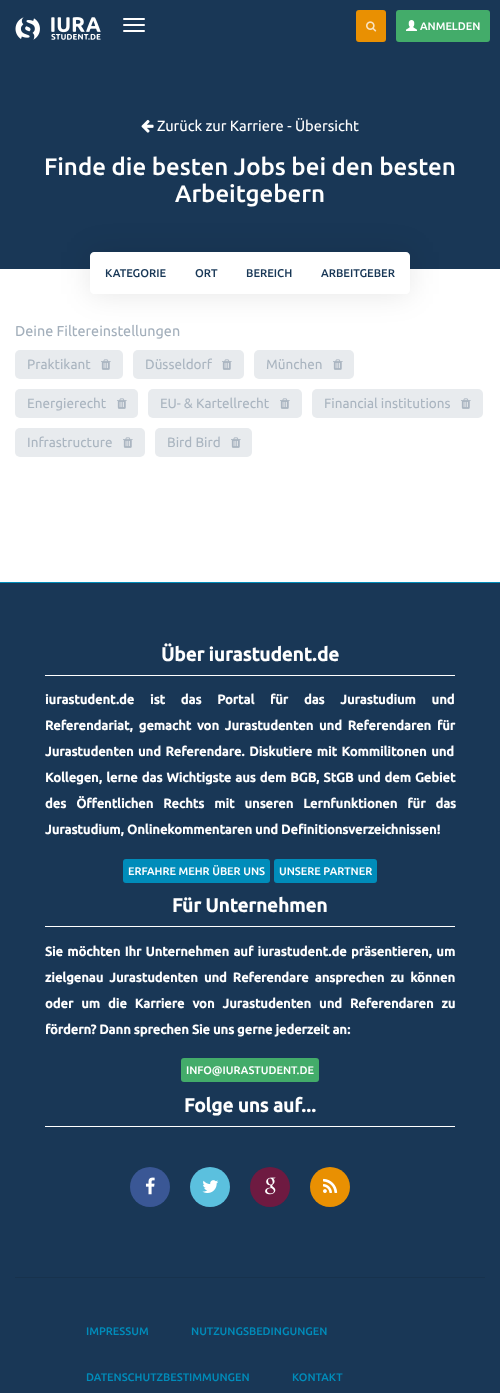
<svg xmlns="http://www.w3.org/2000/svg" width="500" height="1393">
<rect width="100%" height="100%" fill="#fff"/>
<rect width="500" height="269" fill="#193756"/>
<image x="15" y="17" width="86" height="23" href="media/1.png"/>
<rect x="123" y="18" width="22" height="2" rx="1" fill="#fff"/>
<rect x="123" y="24" width="22" height="2" rx="1" fill="#fff"/>
<rect x="123" y="30" width="22" height="2" rx="1" fill="#fff"/>
<rect x="356" y="10" width="30" height="32" rx="3" fill="#e99002"/>
<image x="366" y="21" width="11" height="11" href="media/2.png"/>
<rect x="396" y="10" width="94" height="32" rx="3" fill="#43ac6a"/>
<image x="406" y="20" width="11" height="11" href="media/3.png"/>
<text x="420" y="30" style="font-family:Ubuntu;font-size:11px;font-weight:500;fill:#fff">ANMELDEN</text>
<image x="141" y="119" width="13" height="14" href="media/4.png"/>
<text x="157" y="131" style="font-family:Ubuntu;font-size:14.7px;fill:#fff">Zurück zur Karriere - Übersicht</text>
<text x="44" y="175" style="font-family:Ubuntu;font-size:24px;font-weight:500;fill:#fff">Finde die besten Jobs bei den besten</text>
<text x="175" y="202" style="font-family:Ubuntu;font-size:24px;font-weight:500;fill:#fff">Arbeitgebern</text>
<rect x="90" y="252" width="320" height="42" fill="#0000001a" filter="blur(15px)"/>
<path d="M94 252h87v42h-87c-2 0-4-2-4-4v-34c0-2 2-4 4-4z" fill="#fff"/>
<text x="105" y="277" style="font-family:Ubuntu;font-size:11.25px;font-weight:500;fill:#183756">KATEGORIE</text>
<rect x="181" y="252" width="125" height="42" fill="#fff"/>
<text x="195" y="277" style="font-family:Ubuntu;font-size:11.25px;font-weight:500;fill:#183756">ORT</text>
<text x="246" y="277" style="font-family:Ubuntu;font-size:11.25px;font-weight:500;fill:#183756">BEREICH</text>
<path d="M306 252h100c2 0 4 2 4 4v34c0 2-2 4-4 4h-100z" fill="#fff"/>
<text x="321" y="277" style="font-family:Ubuntu;font-size:11.25px;font-weight:500;fill:#183756">ARBEITGEBER</text>
<text x="15" y="336" style="font-family:Ubuntu;font-size:14.4px;fill:#a3afbb">Deine Filtereinstellungen</text>
<rect x="15" y="350" width="108" height="29" rx="5" fill="#e8ebee"/>
<text x="27" y="369" style="font-family:Ubuntu;font-size:13.5px;fill:#aab5c0">Praktikant</text>
<image x="101" y="359" width="10" height="11" href="media/5.png"/>
<rect x="133" y="350" width="111" height="29" rx="5" fill="#e8ebee"/>
<text x="145" y="369" style="font-family:Ubuntu;font-size:13.5px;fill:#aab5c0">Düsseldorf</text>
<image x="222" y="359" width="10" height="11" href="media/5.png"/>
<rect x="254" y="350" width="100" height="29" rx="5" fill="#e8ebee"/>
<text x="266" y="369" style="font-family:Ubuntu;font-size:13.5px;fill:#aab5c0">München</text>
<image x="333" y="359" width="10" height="11" href="media/5.png"/>
<rect x="15" y="389" width="123" height="29" rx="5" fill="#e8ebee"/>
<text x="27" y="408" style="font-family:Ubuntu;font-size:13.5px;fill:#aab5c0">Energierecht</text>
<image x="117" y="398" width="10" height="11" href="media/5.png"/>
<rect x="148" y="389" width="154" height="29" rx="5" fill="#e8ebee"/>
<text x="160" y="408" style="font-family:Ubuntu;font-size:13.5px;fill:#aab5c0">EU- &amp; Kartellrecht</text>
<image x="280" y="398" width="10" height="11" href="media/5.png"/>
<rect x="312" y="389" width="171" height="29" rx="5" fill="#e8ebee"/>
<text x="324" y="408" style="font-family:Ubuntu;font-size:13.5px;fill:#aab5c0">Financial institutions</text>
<image x="461" y="398" width="10" height="11" href="media/5.png"/>
<rect x="15" y="428" width="130" height="29" rx="5" fill="#e8ebee"/>
<text x="27" y="447" style="font-family:Ubuntu;font-size:13.5px;fill:#aab5c0">Infrastructure</text>
<image x="123" y="437" width="10" height="11" href="media/5.png"/>
<rect x="155" y="428" width="97" height="29" rx="5" fill="#e8ebee"/>
<text x="167" y="447" style="font-family:Ubuntu;font-size:13.5px;fill:#aab5c0">Bird Bird</text>
<image x="231" y="437" width="10" height="11" href="media/5.png"/>
<rect y="583" width="500" height="810" fill="#193756"/>
<rect y="582" width="500" height="1" fill="#008cba"/>
<rect x="45" y="675" width="410" height="1" fill="#fff"/>
<text x="161" y="661" style="font-family:Ubuntu;font-size:19px;font-weight:bold;fill:#fff">Über iurastudent.de</text>
<text x="45" y="704" word-spacing="12.75" style="font-family:Ubuntu;font-size:13px;font-weight:bold;fill:#fff">iurastudent.de ist das Portal für das Jurastudium und</text>
<text x="45" y="730" word-spacing="2.75" style="font-family:Ubuntu;font-size:13px;font-weight:bold;fill:#fff">Referendariat, gemacht von Jurastudenten und Referendaren für</text>
<text x="45" y="756" word-spacing="1.5" style="font-family:Ubuntu;font-size:13px;font-weight:bold;fill:#fff">Jurastudenten und Referendare. Diskutiere mit Kommilitonen und</text>
<text x="45" y="782" word-spacing="1" style="font-family:Ubuntu;font-size:13px;font-weight:bold;fill:#fff">Kollegen, lerne das Wichtigste aus dem BGB, StGB und dem Gebiet</text>
<text x="45" y="808" word-spacing="7" style="font-family:Ubuntu;font-size:13px;font-weight:bold;fill:#fff">des Öffentlichen Rechts mit unseren Lernfunktionen für das</text>
<text x="45" y="834" style="font-family:Ubuntu;font-size:13px;font-weight:bold;fill:#fff">Jurastudium, Onlinekommentaren und Definitionsverzeichnissen!</text>
<rect x="123" y="859" width="147" height="24" rx="3" fill="#008cba"/>
<text x="128" y="875" style="font-family:Ubuntu;font-size:11px;font-weight:500;fill:#fff">ERFAHRE MEHR ÜBER UNS</text>
<rect x="274" y="859" width="103" height="24" rx="3" fill="#008cba"/>
<text x="279" y="875" style="font-family:Ubuntu;font-size:11px;font-weight:500;fill:#fff">UNSERE PARTNER</text>
<rect x="45" y="926" width="410" height="1" fill="#fff"/>
<text x="172" y="912" style="font-family:Ubuntu;font-size:19px;font-weight:bold;fill:#fff">Für Unternehmen</text>
<text x="45" y="956" word-spacing="1.25" style="font-family:Ubuntu;font-size:13px;font-weight:bold;fill:#fff">Sie möchten Ihr Unternehmen auf iurastudent.de präsentieren, um</text>
<text x="45" y="982" word-spacing="3" style="font-family:Ubuntu;font-size:13px;font-weight:bold;fill:#fff">zielgenau Jurastudenten und Referendare ansprechen zu können</text>
<text x="45" y="1008" word-spacing="5" style="font-family:Ubuntu;font-size:13px;font-weight:bold;fill:#fff">oder um die Karriere von Jurastudenten und Referendaren zu</text>
<text x="45" y="1034" style="font-family:Ubuntu;font-size:13px;font-weight:bold;fill:#fff">fördern? Dann sprechen Sie uns gerne jederzeit an:</text>
<rect x="181" y="1058" width="138" height="24" rx="3" fill="#43ac6a"/>
<text x="186" y="1074" style="font-family:Ubuntu;font-size:11px;font-weight:500;fill:#fff">INFO@IURASTUDENT.DE</text>
<rect x="45" y="1126" width="410" height="1" fill="#fff"/>
<text x="184" y="1112" style="font-family:Ubuntu;font-size:19px;font-weight:bold;fill:#fff">Folge uns auf...</text>
<circle cx="150" cy="1187" r="20" fill="#3a5795"/>
<image x="145" y="1177" width="10" height="18" href="media/6.png"/>
<circle cx="210" cy="1187" r="20" fill="#5bc0de"/>
<image x="202" y="1180" width="17" height="13" href="media/7.png"/>
<circle cx="270" cy="1187" r="20" fill="#6e1a41"/>
<image x="265" y="1177" width="11" height="18" href="media/8.png"/>
<circle cx="330" cy="1187" r="20" fill="#e99002"/>
<image x="323" y="1178" width="15" height="15" href="media/9.png"/>
<rect x="15" y="1277" width="470" height="1" fill="#17324d"/>
<text x="86" y="1335" style="font-family:Ubuntu;font-size:11px;font-weight:500;fill:#008cba">IMPRESSUM</text>
<text x="191" y="1335" style="font-family:Ubuntu;font-size:11px;font-weight:500;fill:#008cba">NUTZUNGSBEDINGUNGEN</text>
<text x="86" y="1381" style="font-family:Ubuntu;font-size:11px;font-weight:500;fill:#008cba">DATENSCHUTZBESTIMMUNGEN</text>
<text x="292" y="1381" style="font-family:Ubuntu;font-size:11px;font-weight:500;fill:#008cba">KONTAKT</text>
</svg>
